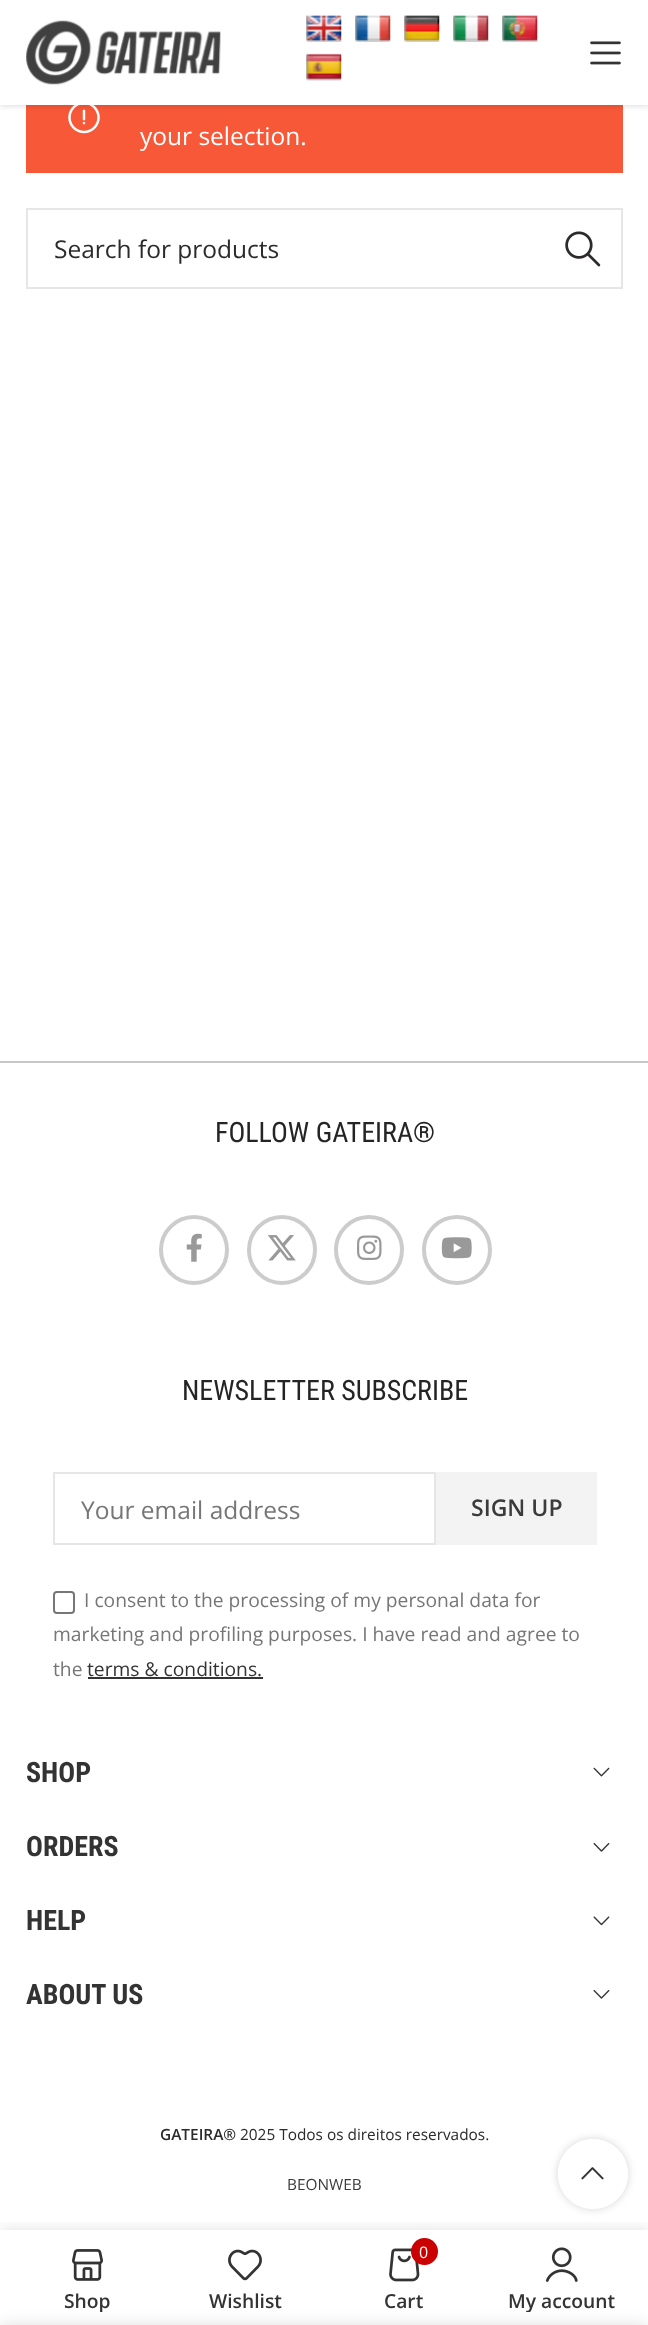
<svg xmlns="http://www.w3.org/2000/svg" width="648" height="2325">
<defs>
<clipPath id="clip1"><path d="M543 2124h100v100h-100zm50 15c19.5 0 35 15.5 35 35c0 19.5-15.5 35-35 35c-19.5 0-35-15.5-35-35c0-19.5 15.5-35 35-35z" clip-rule="evenodd"/></clipPath>
<clipPath id="clip2"><rect x="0" y="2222" width="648" height="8"/></clipPath>
<clipPath id="clip3"><rect x="26" y="2289" width="123" height="23"/></clipPath>
<clipPath id="clip4"><rect x="501" y="2289" width="122" height="23"/></clipPath>
</defs>
<rect width="100%" height="100%" fill="#fff"/>
<rect x="26" y="105" width="597" height="68" fill="#f75838"/>
<image x="68" y="105" width="32" height="29" href="media/9.png"/>
<rect y="2" width="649" height="105" fill="#0000001a" filter="blur(2.5px)"/>
<rect width="648" height="105" fill="#fff"/>
<image x="26" y="20" width="195" height="65" href="media/1.png"/>
<image x="306" y="15" width="36" height="27" href="media/2.png"/>
<image x="355" y="15" width="36" height="27" href="media/3.png"/>
<image x="404" y="15" width="36" height="27" href="media/4.png"/>
<image x="453" y="15" width="36" height="27" href="media/5.png"/>
<image x="502" y="15" width="36" height="27" href="media/6.png"/>
<image x="306" y="53" width="36" height="28" href="media/7.png"/>
<image x="590" y="41" width="31" height="24" href="media/8.png"/>
<text x="140" y="145" style="font-family:Open Sans;font-size:24.5px;fill:#fff">your selection.</text>
<rect x="27" y="209" width="595" height="79" fill="none" stroke="#e6e6e6" stroke-width="2"/>
<text x="54" y="258" style="font-family:Open Sans;font-size:24.5px;fill:#2d2a2a">Search for products</text>
<image x="565" y="231" width="36" height="36" href="media/10.png"/>
<rect y="1061" width="648" height="2" fill="#c7c7c7"/>
<text x="215" y="1142" style="font-family:Roboto Condensed;font-size:28px;fill:#242424">FOLLOW GATEIRA®</text>
<circle cx="194" cy="1250" r="33" fill="none" stroke="#ccc" stroke-width="4"/>
<image x="186" y="1233" width="16" height="29" href="media/11.png"/>
<circle cx="282" cy="1250" r="33" fill="none" stroke="#ccc" stroke-width="4"/>
<image x="268" y="1235" width="28" height="26" href="media/12.png"/>
<circle cx="369" cy="1250" r="33" fill="none" stroke="#ccc" stroke-width="4"/>
<image x="357" y="1235" width="25" height="25" href="media/13.png"/>
<circle cx="457" cy="1250" r="33" fill="none" stroke="#ccc" stroke-width="4"/>
<image x="441" y="1237" width="31" height="22" href="media/14.png"/>
<text x="182" y="1400" style="font-family:Roboto Condensed;font-size:28px;fill:#242424">NEWSLETTER SUBSCRIBE</text>
<rect x="54" y="1473" width="381" height="71" fill="none" stroke="#e6e6e6" stroke-width="2"/>
<text x="81" y="1519" style="font-family:Open Sans;font-size:24.5px;fill:#767676">Your email address</text>
<rect x="436" y="1472" width="161" height="73" fill="#f3f3f3"/>
<text x="471" y="1516" style="font-family:Open Sans;font-size:23px;font-weight:600;fill:#3b3b3b">SIGN UP</text>
<rect x="54" y="1592" width="20" height="21" rx="3" fill="none" stroke="#767676" stroke-width="2"/>
<text x="84" y="1607" style="font-family:Open Sans;font-size:19.25px;fill:#767676">I consent to the processing of my personal data for</text>
<text x="53" y="1641" style="font-family:Open Sans;font-size:19.25px;fill:#767676">marketing and profiling purposes. I have read and agree to</text>
<text x="53" y="1676" style="font-family:Open Sans;font-size:19.25px;fill:#767676">the</text>
<text x="87" y="1676" style="font-family:Open Sans;font-size:19.25px;fill:#333">terms &amp; conditions.</text>
<rect x="88" y="1677" width="175" height="2" fill="#333"/>
<text x="26" y="1782" style="font-family:Roboto Condensed;font-size:28px;font-weight:bold;fill:#333">SHOP</text>
<image x="593" y="1767" width="17" height="10" href="media/15.png"/>
<text x="26" y="1856" style="font-family:Roboto Condensed;font-size:28px;font-weight:bold;fill:#333">ORDERS</text>
<image x="593" y="1843" width="17" height="9" href="media/16.png"/>
<text x="26" y="1930" style="font-family:Roboto Condensed;font-size:28px;font-weight:bold;fill:#333">HELP</text>
<image x="593" y="1916" width="17" height="10" href="media/17.png"/>
<text x="26" y="2004" style="font-family:Roboto Condensed;font-size:28px;font-weight:bold;fill:#333">ABOUT US</text>
<image x="593" y="1990" width="17" height="9" href="media/16.png"/>
<text x="160" y="2140" style="font-family:Open Sans;font-size:15.4px;font-weight:600;fill:#2d2a2a">GATEIRA®</text>
<text x="240" y="2140" style="font-family:Open Sans;font-size:15.4px;fill:#2d2a2a">2025 Todos os direitos reservados.</text>
<text x="287" y="2190" style="font-family:Open Sans;font-size:15.4px;fill:#3b3b3b">BEONWEB</text>
<g clip-path="url(#clip1)">
<rect x="558" y="2139" width="70" height="70" rx="35" fill="#0000002b" filter="blur(4.5px)"/>
</g>
<circle cx="593" cy="2174" r="35" fill="#ffffffe6"/>
<image x="581" y="2167" width="23" height="13" href="media/18.png"/>
<g clip-path="url(#clip2)">
<rect y="2230" width="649" height="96" fill="#0000001f" filter="blur(8px)"/>
</g>
<image x="72" y="2249" width="31" height="32" href="media/19.png"/>
<g clip-path="url(#clip3)">
<text x="64" y="2308" style="font-family:Open Sans;font-size:19.25px;font-weight:600;fill:#333">Shop</text>
</g>
<image x="228" y="2249" width="34" height="32" href="media/20.png"/>
<text x="209" y="2308" style="font-family:Open Sans;font-size:19.25px;font-weight:600;fill:#333">Wishlist</text>
<image x="389" y="2248" width="31" height="34" href="media/21.png"/>
<circle cx="424.5" cy="2251.5" r="13.5" fill="#cb0000"/>
<text x="419" y="2258" style="font-family:Open Sans;font-size:16px;fill:#fff">0</text>
<text x="384" y="2308" style="font-family:Open Sans;font-size:19.25px;font-weight:600;fill:#333">Cart</text>
<image x="545" y="2247" width="33" height="35" href="media/22.png"/>
<g clip-path="url(#clip4)">
<text x="508" y="2308" style="font-family:Open Sans;font-size:19.25px;font-weight:600;fill:#333">My account</text>
</g>
<rect y="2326" width="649" height="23" fill="#00000024" filter="blur(8px)"/>
</svg>
